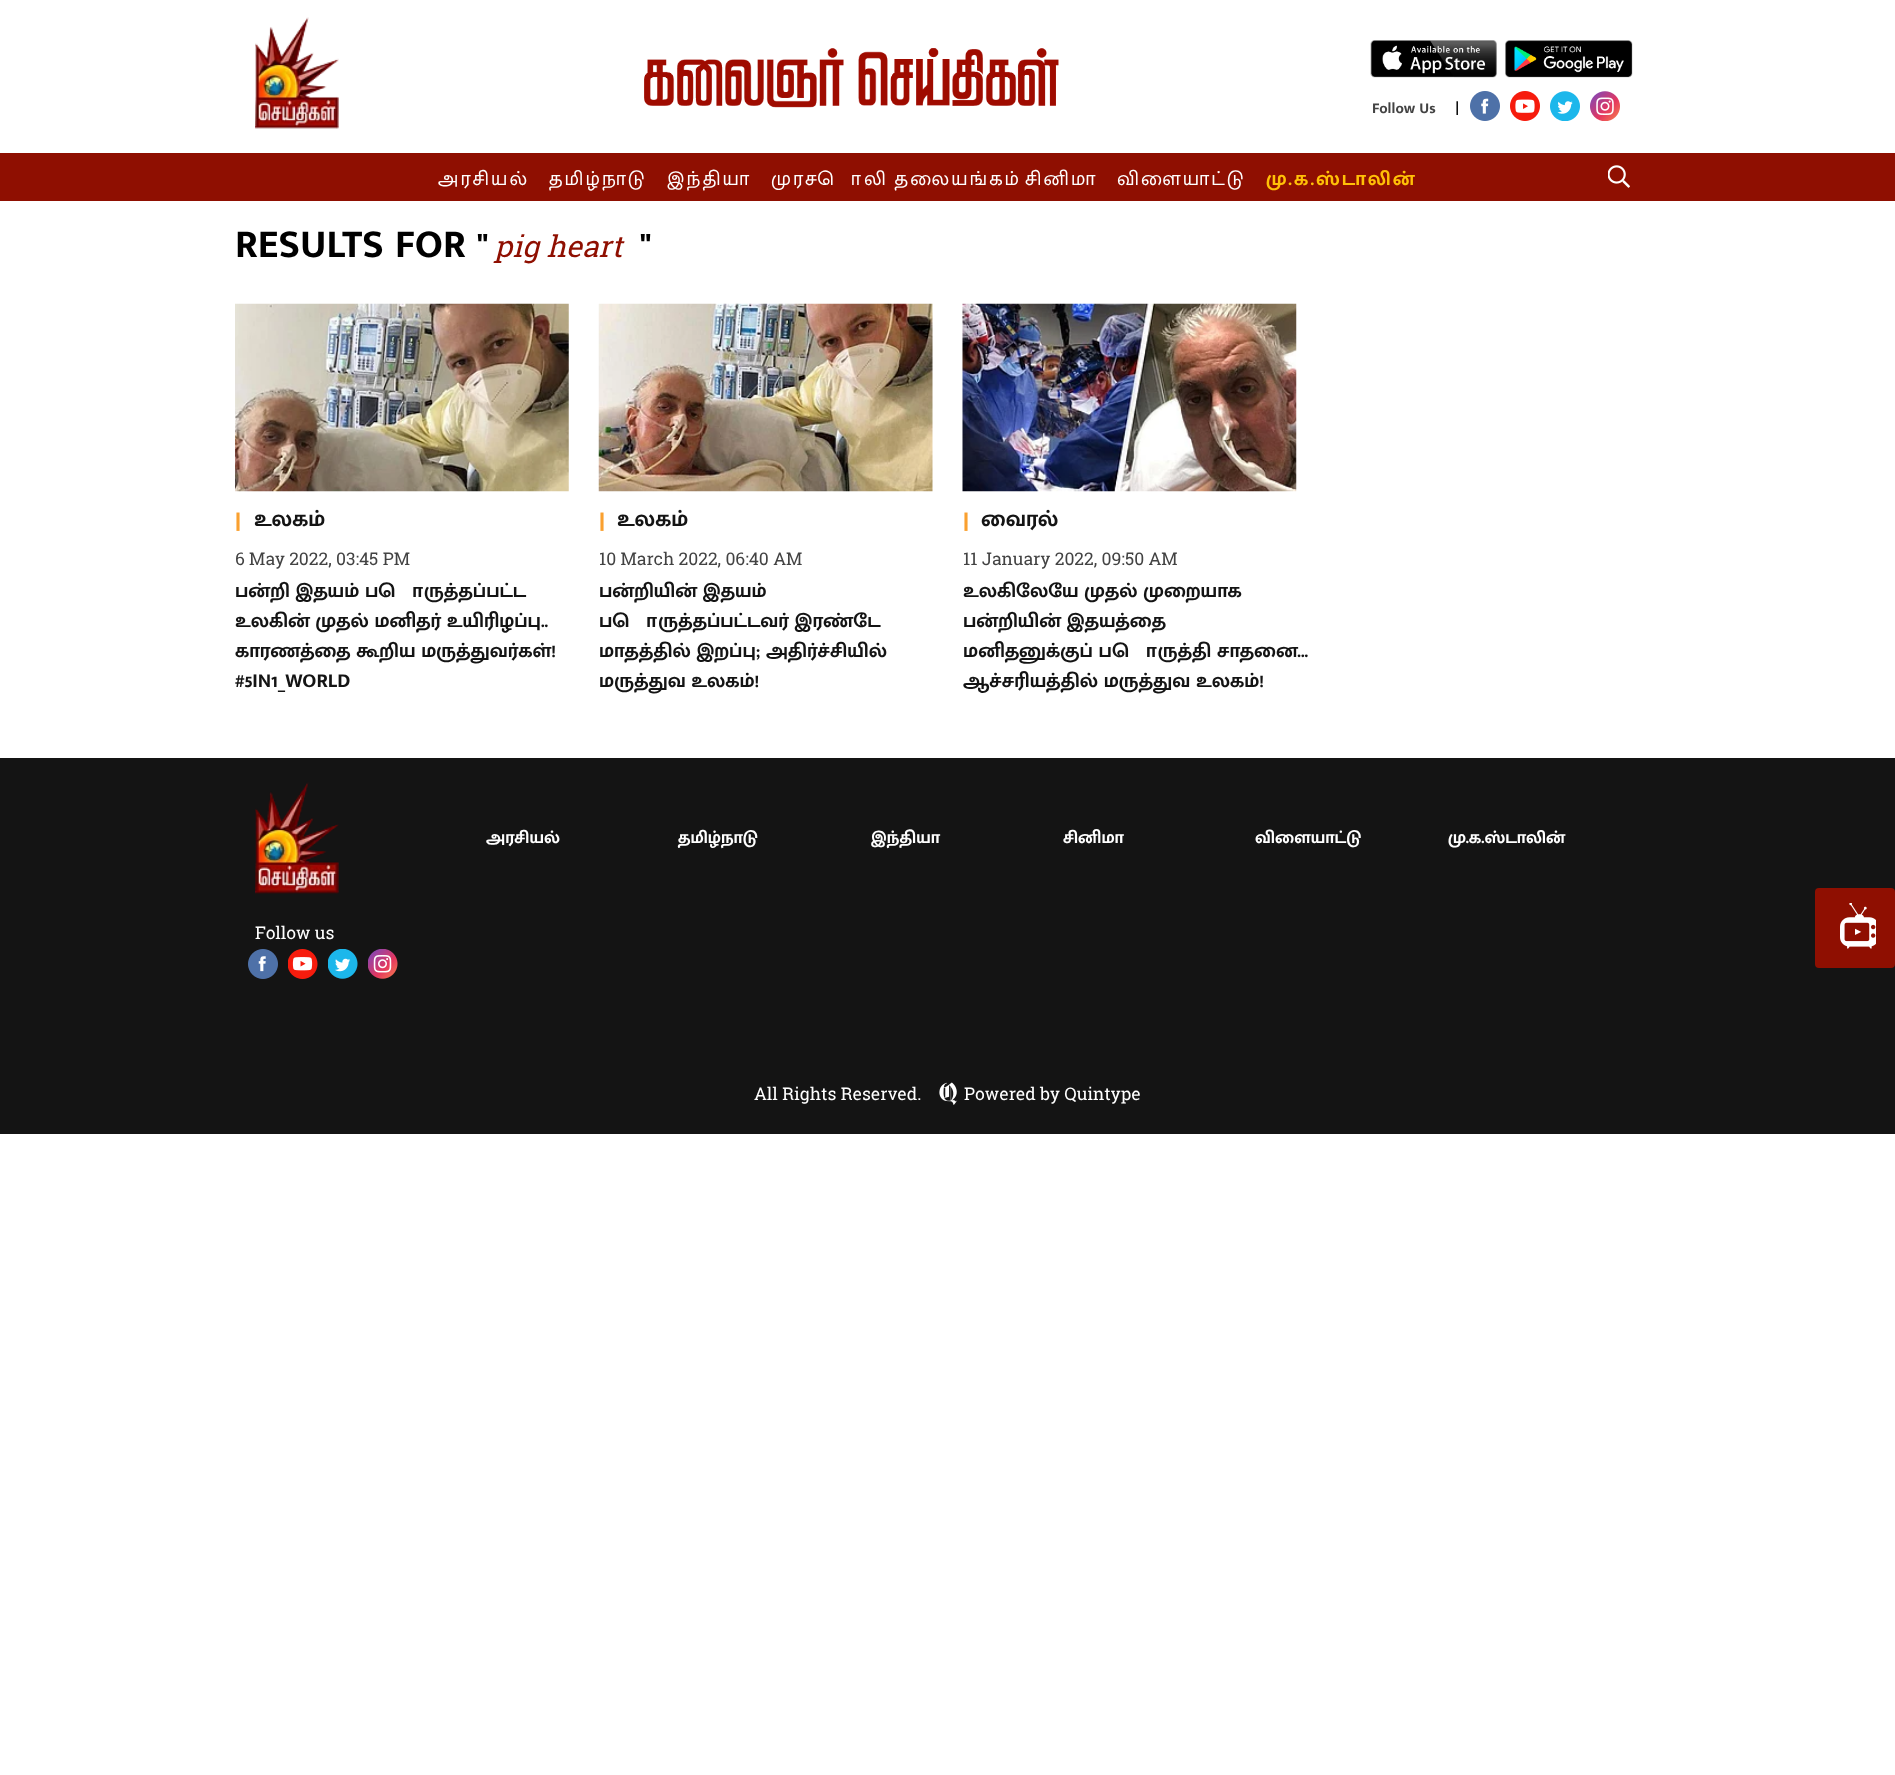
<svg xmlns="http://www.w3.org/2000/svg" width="1895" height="1775">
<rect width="100%" height="100%" fill="#fff"/>
<image x="255" y="17" width="84" height="112" href="media/1.png"/>
<image x="644" y="48" width="415" height="60" href="media/2.png"/>
<image x="1370" y="40" width="127" height="38" href="media/3.png"/>
<image x="1505" y="40" width="128" height="38" href="media/4.png"/>
<text x="1372" y="113" style="font-family:Mukta Malar;font-size:15px;font-weight:bold;fill:#434343">Follow Us</text>
<text x="1455" y="113" style="font-family:Mukta Malar;font-size:20px;fill:#000">|</text>
<image x="1470" y="91" width="30" height="30" href="media/5.png"/>
<image x="1510" y="91" width="30" height="30" href="media/6.png"/>
<image x="1550" y="91" width="30" height="30" href="media/7.png"/>
<image x="1590" y="91" width="30" height="30" href="media/8.png"/>
<rect y="153" width="1895" height="48" fill="#8f0f01"/>
<text x="438" y="185" style="font-family:Mukta Malar;font-size:20px;letter-spacing:2.1px;fill:#fff">அரசியல்</text>
<text x="549" y="185" style="font-family:Mukta Malar;font-size:20px;letter-spacing:2.1px;fill:#fff">தமிழ்நாடு</text>
<text x="667" y="185" style="font-family:Mukta Malar;font-size:20px;letter-spacing:2.1px;fill:#fff">இந்தியா</text>
<text x="771" y="185" word-spacing="-1" style="font-family:Mukta Malar;font-size:20px;letter-spacing:2.1px;fill:#fff">முரசொலி தலையங்கம்</text>
<text x="1025" y="185" style="font-family:Mukta Malar;font-size:20px;letter-spacing:2.1px;fill:#fff">சினிமா</text>
<text x="1117" y="185" style="font-family:Mukta Malar;font-size:20px;letter-spacing:2.1px;fill:#fff">விளையாட்டு</text>
<text x="1266" y="185" style="font-family:Mukta Malar;font-size:20px;font-weight:bold;letter-spacing:2.1px;fill:#ffc007">மு.க.ஸ்டாலின்</text>
<image x="1608" y="165" width="22" height="23" href="media/9.png"/>
<text x="235" y="257" style="font-family:Mukta Malar;font-size:40px;font-weight:bold;fill:#000">RESULTS FOR "</text>
<text x="494" y="257" style="font-family:Roboto Slab;font-size:30px;font-style:italic;fill:#8f0f01">pig heart</text>
<text x="640" y="257" style="font-family:Mukta Malar;font-size:40px;font-weight:bold;fill:#000">"</text>
<image x="235" y="303" width="334" height="189" href="media/10.png"/>
<text x="235" y="528" style="font-family:Mukta Malar;font-size:25px;font-weight:bold;fill:#faa02f">|</text>
<text x="254" y="526" style="font-family:Mukta Malar;font-size:22.5px;font-weight:bold;fill:#141414">உலகம்</text>
<text x="235" y="565" style="font-family:Roboto Slab;font-size:17.5px;fill:#434343">6 May 2022, 03:45 PM</text>
<text x="235" y="597" style="font-family:Mukta Malar;font-size:20px;font-weight:bold;fill:#141414">பன்றி இதயம் பொருத்தப்பட்ட</text>
<text x="235" y="627" style="font-family:Mukta Malar;font-size:20px;font-weight:bold;fill:#141414">உலகின் முதல் மனிதர் உயிரிழப்பு..</text>
<text x="235" y="657" style="font-family:Mukta Malar;font-size:20px;font-weight:bold;fill:#141414">காரணத்தை கூறிய மருத்துவர்கள்!</text>
<text x="235" y="687" style="font-family:Mukta Malar;font-size:20px;font-weight:bold;fill:#141414">#5IN1_WORLD</text>
<image x="598" y="303" width="335" height="189" href="media/11.png"/>
<text x="599" y="528" style="font-family:Mukta Malar;font-size:25px;font-weight:bold;fill:#faa02f">|</text>
<text x="617" y="526" style="font-family:Mukta Malar;font-size:22.5px;font-weight:bold;fill:#141414">உலகம்</text>
<text x="599" y="565" style="font-family:Roboto Slab;font-size:17.5px;fill:#434343">10 March 2022, 06:40 AM</text>
<text x="599" y="597" style="font-family:Mukta Malar;font-size:20px;font-weight:bold;fill:#141414">பன்றியின் இதயம்</text>
<text x="599" y="627" style="font-family:Mukta Malar;font-size:20px;font-weight:bold;fill:#141414">பொருத்தப்பட்டவர் இரண்டே</text>
<text x="599" y="657" style="font-family:Mukta Malar;font-size:20px;font-weight:bold;fill:#141414">மாதத்தில் இறப்பு; அதிர்ச்சியில்</text>
<text x="599" y="687" style="font-family:Mukta Malar;font-size:20px;font-weight:bold;fill:#141414">மருத்துவ உலகம்!</text>
<image x="962" y="303" width="335" height="189" href="media/12.png"/>
<text x="963" y="528" style="font-family:Mukta Malar;font-size:25px;font-weight:bold;fill:#faa02f">|</text>
<text x="981" y="526" style="font-family:Mukta Malar;font-size:22.5px;font-weight:bold;fill:#141414">வைரல்</text>
<text x="963" y="565" style="font-family:Roboto Slab;font-size:17.5px;fill:#434343">11 January 2022, 09:50 AM</text>
<text x="963" y="597" style="font-family:Mukta Malar;font-size:20px;font-weight:bold;fill:#141414">உலகிலேயே முதல் முறையாக</text>
<text x="963" y="627" style="font-family:Mukta Malar;font-size:20px;font-weight:bold;fill:#141414">பன்றியின் இதயத்தை</text>
<text x="963" y="657" style="font-family:Mukta Malar;font-size:20px;font-weight:bold;fill:#141414">மனிதனுக்குப் பொருத்தி சாதனை...</text>
<text x="963" y="687" style="font-family:Mukta Malar;font-size:20px;font-weight:bold;fill:#141414">ஆச்சரியத்தில் மருத்துவ உலகம்!</text>
<rect y="758" width="1895" height="376" fill="#141414"/>
<text x="486" y="843" style="font-family:Mukta Malar;font-size:17.5px;font-weight:bold;fill:#fff">அரசியல்</text>
<text x="678" y="843" style="font-family:Mukta Malar;font-size:17.5px;font-weight:bold;fill:#fff">தமிழ்நாடு</text>
<text x="871" y="843" style="font-family:Mukta Malar;font-size:17.5px;font-weight:bold;fill:#fff">இந்தியா</text>
<text x="1063" y="843" style="font-family:Mukta Malar;font-size:17.5px;font-weight:bold;fill:#fff">சினிமா</text>
<text x="1255" y="843" style="font-family:Mukta Malar;font-size:17.5px;font-weight:bold;fill:#fff">விளையாட்டு</text>
<text x="1448" y="843" style="font-family:Mukta Malar;font-size:17.5px;font-weight:bold;fill:#fff">மு.க.ஸ்டாலின்</text>
<image x="255" y="782" width="84" height="112" href="media/13.png"/>
<text x="255" y="939" style="font-family:Roboto Slab;font-size:17.5px;fill:#fff">Follow us</text>
<image x="248" y="949" width="30" height="30" href="media/14.png"/>
<image x="288" y="949" width="30" height="30" href="media/15.png"/>
<image x="328" y="949" width="30" height="30" href="media/16.png"/>
<image x="368" y="949" width="30" height="30" href="media/17.png"/>
<text x="754" y="1100" style="font-family:Roboto Slab;font-size:17.5px;fill:#fff">All Rights Reserved.</text>
<image x="939" y="1082" width="19" height="23" href="media/18.png"/>
<text x="964" y="1100" style="font-family:Roboto Slab;font-size:17.5px;fill:#fff">Powered by Quintype</text>
<rect x="1815" y="888" width="80" height="80" rx="4" fill="#8f0f01"/>
<image x="1840" y="903" width="36" height="46" href="media/19.png"/>
</svg>
